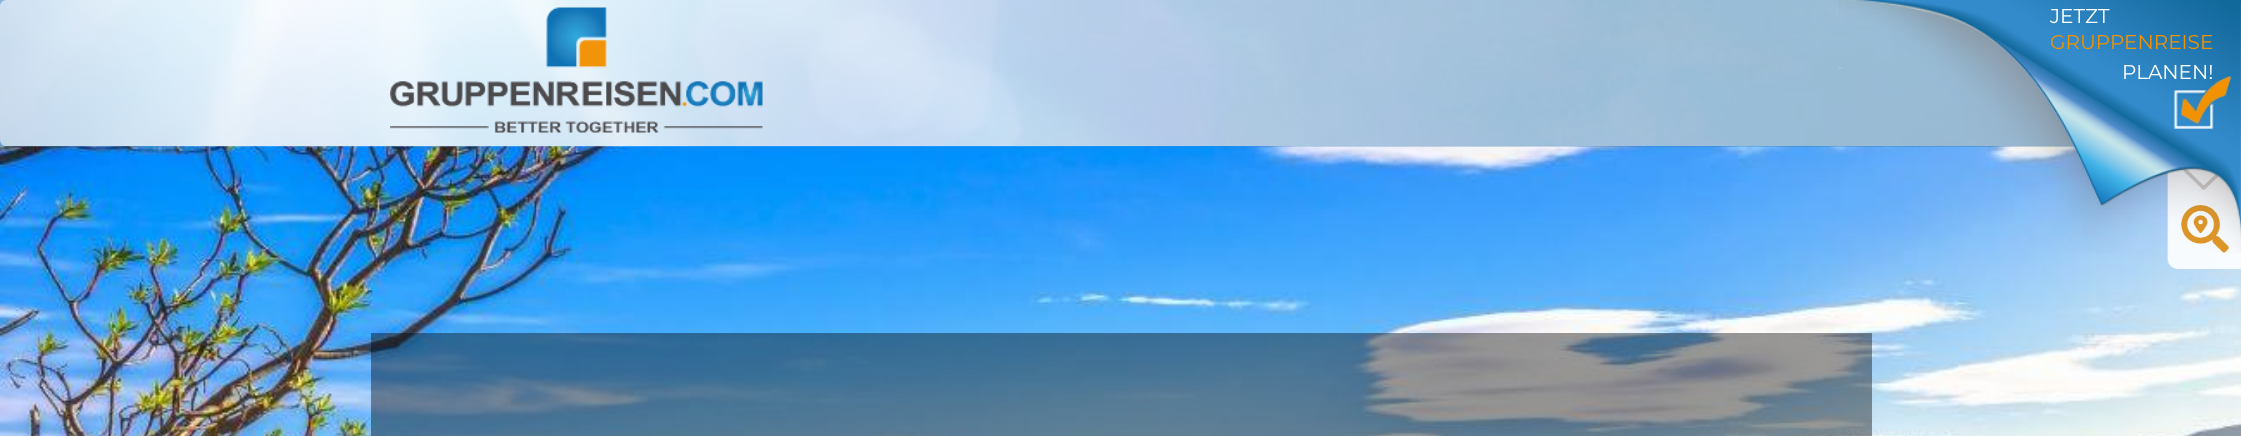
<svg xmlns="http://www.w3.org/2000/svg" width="2241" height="436">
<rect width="100%" height="100%" fill="#fff"/>
<image x="0" y="0" width="2241" height="147" href="media/1.png"/>
<image x="0" y="146" width="2241" height="290" href="media/8.png"/>
<image x="0" y="0" width="2241" height="147" href="media/2.png"/>
<image x="390" y="7" width="373" height="126" href="media/3.png"/>
<path d="M2178 131h63v138h-63c-5.5 0-10-4.5-10-10v-118c0-5.5 4.5-10 10-10z" fill="#ffffffbf"/>
<image x="2167" y="131" width="74" height="138" href="media/5.png"/>
<image x="2181" y="168" width="38" height="22" href="media/6.png"/>
<image x="2181" y="205" width="48" height="48" href="media/7.png"/>
<image x="1839" y="0" width="402" height="253" href="media/4.png"/>
<text x="2050" y="23" style="font-family:Montserrat;font-size:20px;fill:#fff">JETZT</text>
<text x="2050" y="49" style="font-family:Montserrat;font-size:20px;fill:#f39200">GRUPPENREISE</text>
<text x="2122" y="79" style="font-family:Montserrat;font-size:20px;fill:#fff">PLANEN!</text>
<rect x="371" y="333" width="1501" height="103" fill="#00000066"/>
</svg>
